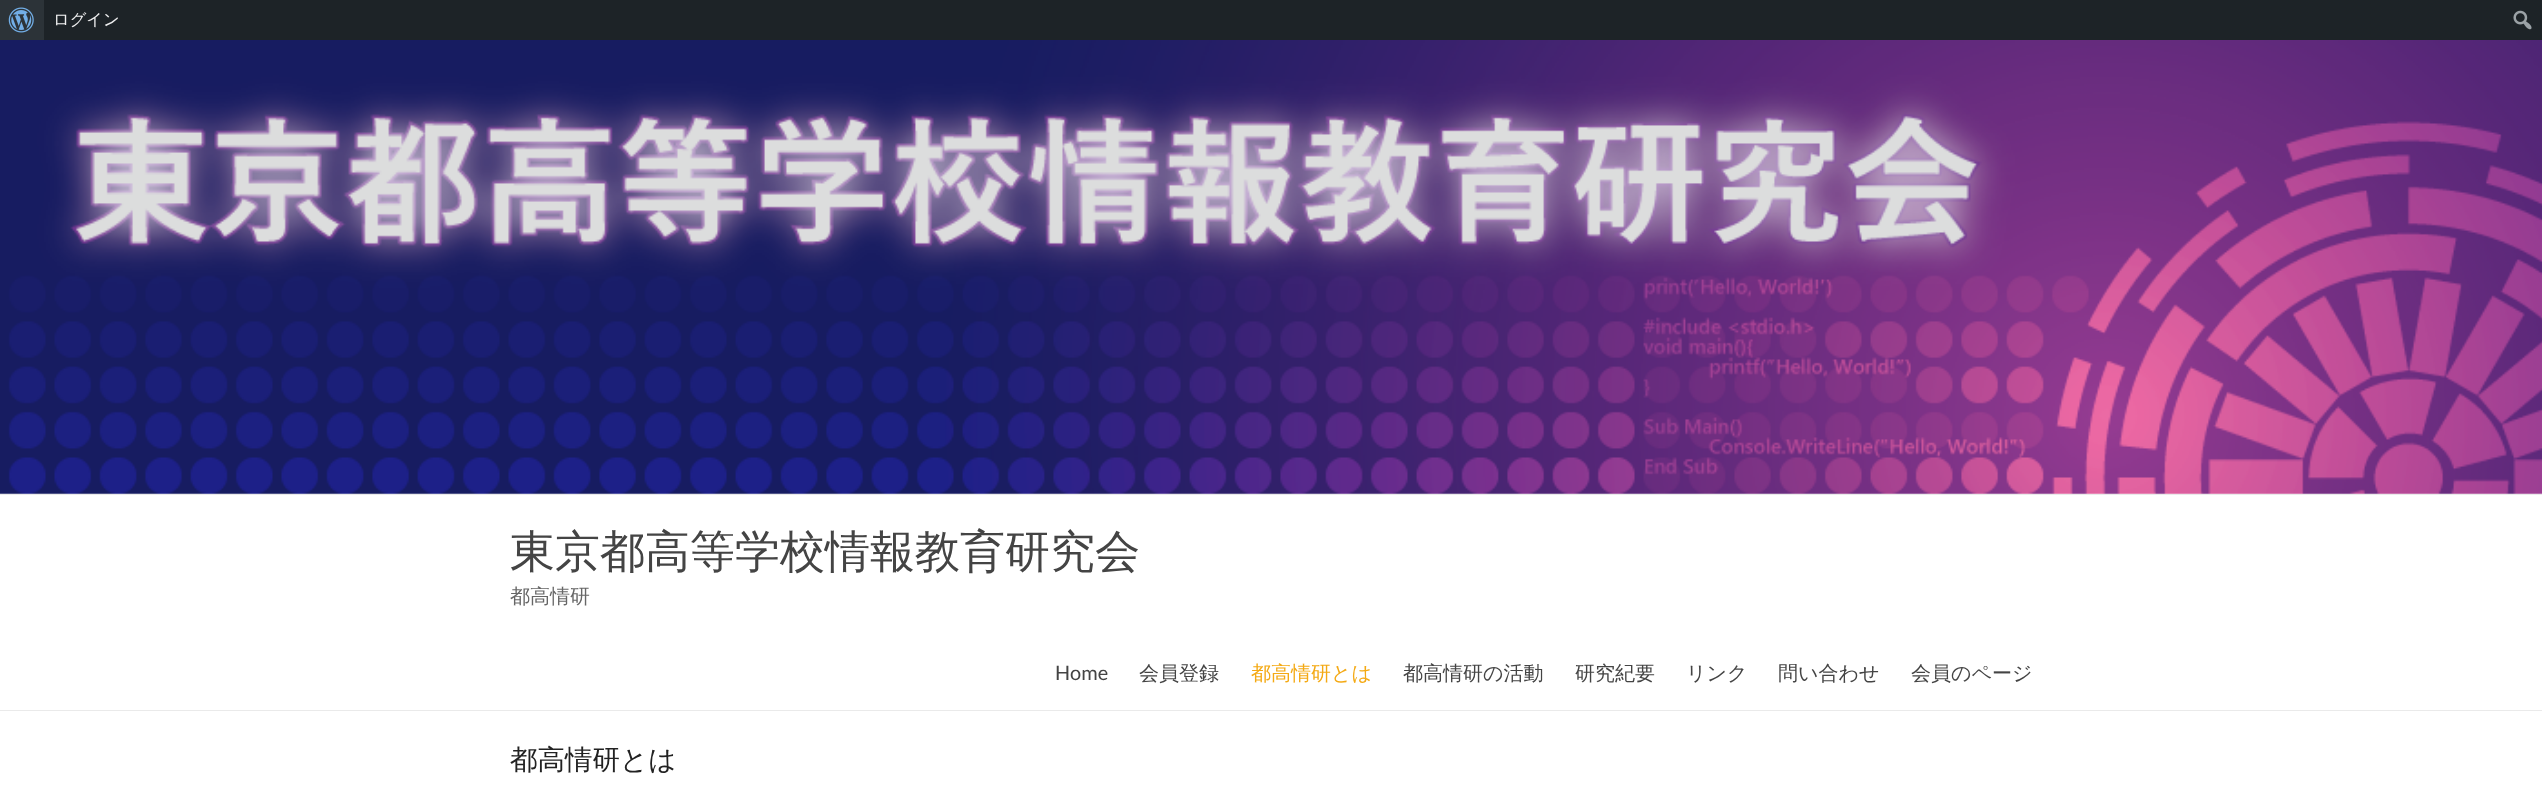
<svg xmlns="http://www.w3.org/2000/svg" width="2542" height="805">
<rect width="100%" height="100%" fill="#fff"/>
<rect x="44" width="2498" height="40" fill="#1d2327"/>
<rect width="44" height="40" fill="#2c3338"/>
<image x="8" y="7" width="26" height="26" href="media/1.png"/>
<text x="53" y="25" style="font-family:WenQuanYi Zen Hei;font-size:16.25px;font-weight:500;fill:#f0f0f1">ログイン</text>
<image x="2513" y="10" width="19" height="20" href="media/2.png"/>
<image x="0" y="40" width="2542" height="454" href="media/3.png"/>
<rect y="494" width="2542" height="1" fill="#eaeaea"/>
<rect y="710" width="2542" height="1" fill="#eaeaea"/>
<text x="510" y="567" style="font-family:WenQuanYi Zen Hei;font-size:45px;font-weight:500;fill:#444">東京都高等学校情報教育研究会</text>
<text x="510" y="603" style="font-family:WenQuanYi Zen Hei;font-size:20px;font-weight:500;fill:#666">都高情研</text>
<text x="1055" y="680" style="font-family:Lato;font-size:20px;fill:#444">Home</text>
<text x="1139" y="680" style="font-family:WenQuanYi Zen Hei;font-size:20px;font-weight:500;fill:#444">会員登録</text>
<text x="1251" y="680" style="font-family:WenQuanYi Zen Hei;font-size:20px;font-weight:500;fill:#f4a913">都高情研とは</text>
<text x="1403" y="680" style="font-family:WenQuanYi Zen Hei;font-size:20px;font-weight:500;fill:#444">都高情研の活動</text>
<text x="1575" y="680" style="font-family:WenQuanYi Zen Hei;font-size:20px;font-weight:500;fill:#444">研究紀要</text>
<text x="1686" y="680" style="font-family:WenQuanYi Zen Hei;font-size:20px;font-weight:500;fill:#444">リンク</text>
<text x="1778" y="680" style="font-family:WenQuanYi Zen Hei;font-size:20px;font-weight:500;fill:#444">問い合わせ</text>
<text x="1911" y="680" style="font-family:WenQuanYi Zen Hei;font-size:20px;font-weight:500;fill:#444">会員のページ</text>
<text x="510" y="769" style="font-family:WenQuanYi Zen Hei;font-size:27.5px;font-weight:500;fill:#222">都高情研とは</text>
</svg>
